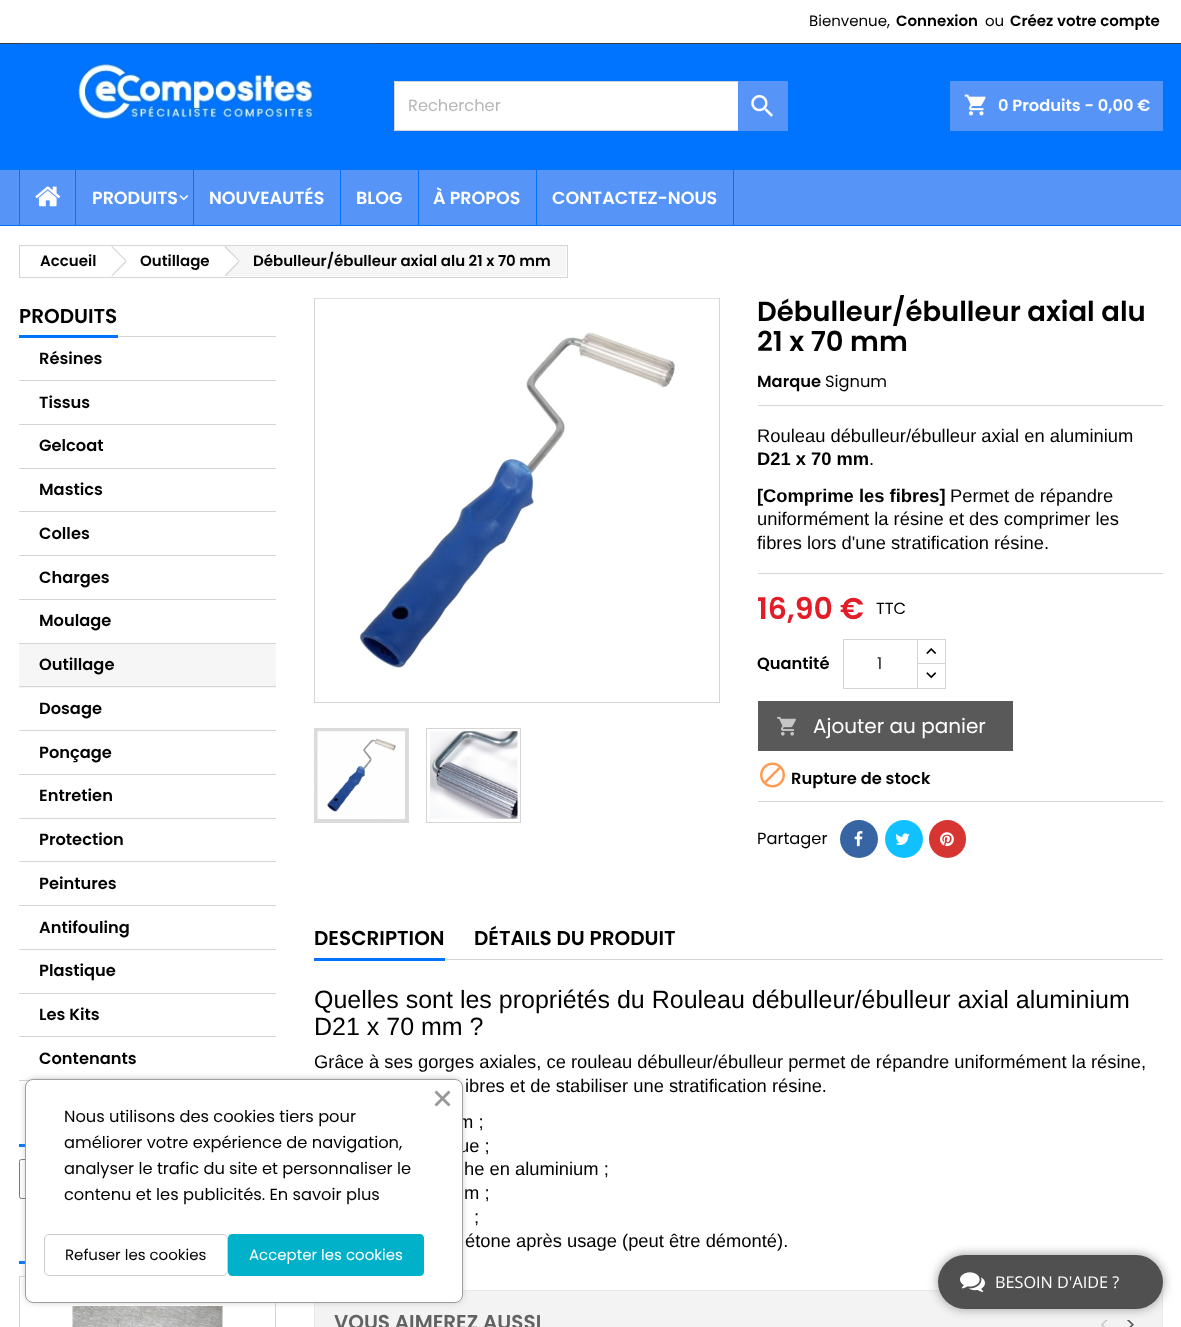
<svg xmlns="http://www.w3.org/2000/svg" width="1181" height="1327">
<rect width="100%" height="100%" fill="#fff"/>
<rect y="43" width="1181" height="1" fill="#383838"/>
<text x="809" y="26" style="font-family:Poppins;font-size:15px;fill:#000">Bienvenue,</text>
<text x="896" y="26" style="font-family:Poppins;font-size:15px;font-weight:600;fill:#000">Connexion</text>
<text x="985" y="26" style="font-family:Poppins;font-size:15px;fill:#000">ou</text>
<text x="1010" y="26" style="font-family:Poppins;font-size:15px;font-weight:600;fill:#000">Créez votre compte</text>
<rect y="44" width="1181" height="126" fill="#0074ff"/>
<image x="18" y="43" width="357" height="77" href="media/1.png"/>
<rect x="395" y="82" width="343" height="48" fill="#fff"/>
<rect x="394.5" y="81.5" width="393" height="49" fill="none" stroke="#d6d4d4"/>
<text x="408" y="111" style="font-family:Poppins;font-size:16.25px;fill:#b7b7b7">Rechercher</text>
<rect x="738" y="81" width="50" height="50" fill="#5794f7"/>
<image x="751" y="95" width="22" height="22" href="media/2.png"/>
<rect x="950" y="81" width="213" height="50" fill="#5794f7"/>
<image x="964" y="94" width="22" height="22" href="media/3.png"/>
<text x="998" y="111" style="font-family:Poppins;font-size:16.25px;font-weight:600;fill:#fff">0 Produits - 0,00 €</text>
<rect y="170" width="1181" height="55" fill="#5794f7"/>
<rect y="225" width="1181" height="1" fill="#0074ff"/>
<rect x="19" y="170" width="1" height="55" fill="#0074ff"/>
<image x="35" y="186" width="26" height="21" href="media/4.png"/>
<rect x="75" y="170" width="1" height="55" fill="#0074ff"/>
<text x="92" y="204" style="font-family:Poppins;font-size:17.5px;font-weight:600;fill:#fff">PRODUITS</text>
<image x="179" y="195" width="9" height="6" href="media/5.png"/>
<rect x="193" y="170" width="1" height="55" fill="#0074ff"/>
<text x="209" y="204" style="font-family:Poppins;font-size:17.5px;font-weight:600;fill:#fff">NOUVEAUTÉS</text>
<rect x="340" y="170" width="1" height="55" fill="#0074ff"/>
<text x="356" y="204" style="font-family:Poppins;font-size:17.5px;font-weight:600;fill:#fff">BLOG</text>
<rect x="418" y="170" width="1" height="55" fill="#0074ff"/>
<text x="433" y="204" style="font-family:Poppins;font-size:17.5px;font-weight:600;fill:#fff">À PROPOS</text>
<rect x="733" y="170" width="1" height="55" fill="#0074ff"/>
<rect x="536" y="170" width="1" height="55" fill="#0074ff"/>
<text x="552" y="204" style="font-family:Poppins;font-size:17.5px;font-weight:600;fill:#fff">CONTACTEZ-NOUS</text>
<rect x="19.5" y="245.5" width="548" height="32" fill="none" stroke="#d6d4d4"/>
<text x="40" y="266" style="font-family:Poppins;font-size:15px;font-weight:600;fill:#000">Accueil</text>
<path d="M112 246l14.5 14.5l-1 .5l-14-14zm13.5 15l1 1l-14.5 14.5l-.5-1z" fill="#d6d4d4"/>
<text x="140" y="266" style="font-family:Poppins;font-size:15px;font-weight:600;fill:#000">Outillage</text>
<rect x="225" y="246" width="341" height="30" fill="#f6f6f6"/>
<path d="M226.5 247l12 12.5c1 1 1 2.5 0 3.5l-12 12.5c-1 1-3 1-3.5 0l-12.5-12.5c-1-1-1-2.5 0-3.5l12.5-12.5c.5-1 2.5-1 3.5 0z" fill="#fff"/>
<path d="M225.5 246l14 14.5l-1 .5l-14-14zm13 15l1 1l-14 14.5l-1-1z" fill="#d6d4d4"/>
<text x="253" y="266" style="font-family:Poppins;font-size:15px;font-weight:600;fill:#000">Débulleur/ébulleur axial alu 21 x 70 mm</text>
<rect x="118" y="336" width="158" height="1" fill="#d6d4d4"/>
<rect x="19" y="335" width="99" height="3" fill="#0074ff"/>
<text x="19" y="323" style="font-family:Poppins;font-size:20px;font-weight:600;fill:#000">PRODUITS</text>
<rect x="19" y="380" width="257" height="1" fill="#d6d4d4"/>
<text x="39" y="364" style="font-family:Poppins;font-size:16.25px;font-weight:600;fill:#000">Résines</text>
<rect x="19" y="424" width="257" height="1" fill="#d6d4d4"/>
<text x="39" y="408" style="font-family:Poppins;font-size:16.25px;font-weight:600;fill:#000">Tissus</text>
<rect x="19" y="468" width="257" height="1" fill="#d6d4d4"/>
<text x="39" y="451" style="font-family:Poppins;font-size:16.25px;font-weight:600;fill:#000">Gelcoat</text>
<rect x="19" y="511" width="257" height="1" fill="#d6d4d4"/>
<text x="39" y="495" style="font-family:Poppins;font-size:16.25px;font-weight:600;fill:#000">Mastics</text>
<rect x="19" y="555" width="257" height="1" fill="#d6d4d4"/>
<text x="39" y="539" style="font-family:Poppins;font-size:16.25px;font-weight:600;fill:#000">Colles</text>
<rect x="19" y="599" width="257" height="1" fill="#d6d4d4"/>
<text x="39" y="583" style="font-family:Poppins;font-size:16.25px;font-weight:600;fill:#000">Charges</text>
<rect x="19" y="643" width="257" height="1" fill="#d6d4d4"/>
<text x="39" y="626" style="font-family:Poppins;font-size:16.25px;font-weight:600;fill:#000">Moulage</text>
<rect x="19" y="644" width="257" height="44" fill="#f6f6f6"/>
<rect x="19" y="686" width="257" height="1" fill="#d6d4d4"/>
<text x="39" y="670" style="font-family:Poppins;font-size:16.25px;font-weight:600;fill:#000">Outillage</text>
<rect x="19" y="730" width="257" height="1" fill="#d6d4d4"/>
<text x="39" y="714" style="font-family:Poppins;font-size:16.25px;font-weight:600;fill:#000">Dosage</text>
<rect x="19" y="774" width="257" height="1" fill="#d6d4d4"/>
<text x="39" y="758" style="font-family:Poppins;font-size:16.25px;font-weight:600;fill:#000">Ponçage</text>
<rect x="19" y="818" width="257" height="1" fill="#d6d4d4"/>
<text x="39" y="801" style="font-family:Poppins;font-size:16.25px;font-weight:600;fill:#000">Entretien</text>
<rect x="19" y="861" width="257" height="1" fill="#d6d4d4"/>
<text x="39" y="845" style="font-family:Poppins;font-size:16.25px;font-weight:600;fill:#000">Protection</text>
<rect x="19" y="905" width="257" height="1" fill="#d6d4d4"/>
<text x="39" y="889" style="font-family:Poppins;font-size:16.25px;font-weight:600;fill:#000">Peintures</text>
<rect x="19" y="949" width="257" height="1" fill="#d6d4d4"/>
<text x="39" y="933" style="font-family:Poppins;font-size:16.25px;font-weight:600;fill:#000">Antifouling</text>
<rect x="19" y="993" width="257" height="1" fill="#d6d4d4"/>
<text x="39" y="976" style="font-family:Poppins;font-size:16.25px;font-weight:600;fill:#000">Plastique</text>
<rect x="19" y="1036" width="257" height="1" fill="#d6d4d4"/>
<text x="39" y="1020" style="font-family:Poppins;font-size:16.25px;font-weight:600;fill:#000">Les Kits</text>
<rect x="19" y="1080" width="11" height="1" fill="#d6d4d4"/>
<text x="39" y="1064" style="font-family:Poppins;font-size:16.25px;font-weight:600;fill:#000">Contenants</text>
<rect x="19" y="1144" width="6" height="3" fill="#0074ff"/>
<rect x="19.5" y="1159.5" width="256" height="39" rx="2" fill="none" stroke="#767676"/>
<rect x="19" y="1261" width="6" height="3" fill="#0074ff"/>
<rect x="19.5" y="1276.5" width="256" height="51" fill="none" stroke="#d6d4d4"/>
<image x="72" y="1306" width="151" height="21" href="media/6.png"/>
<rect x="314.5" y="298.5" width="405" height="404" fill="none" stroke="#d6d4d4"/>
<image x="315" y="298" width="404" height="371" href="media/7.png"/>
<rect x="316" y="730" width="91" height="91" fill="none" stroke="#dbdbdb" stroke-width="4"/>
<rect x="426.5" y="728.5" width="94" height="94" fill="none" stroke="#d6d4d4"/>
<image x="317" y="731" width="88" height="88" href="media/8.png"/>
<image x="430" y="731" width="88" height="88" href="media/9.png"/>
<text x="757" y="321" style="font-family:Poppins;font-size:27.5px;font-weight:600;fill:#000">Débulleur/ébulleur axial alu</text>
<text x="757" y="351" style="font-family:Poppins;font-size:27.5px;font-weight:600;fill:#000">21 x 70 mm</text>
<text x="757" y="387" style="font-family:Poppins;font-size:16.25px;font-weight:600;fill:#000">Marque</text>
<text x="825" y="387" style="font-family:Poppins;font-size:16.25px;fill:#000">Signum</text>
<rect x="758" y="405" width="405" height="1" fill="#d6d4d4"/>
<text x="757" y="442" style="font-family:Liberation Sans;font-size:18.35px;fill:#000">Rouleau débulleur/ébulleur axial en aluminium</text>
<text x="757" y="465" style="font-family:Liberation Sans;font-size:18.35px;font-weight:bold;fill:#000">D21 x 70 mm</text>
<text x="869" y="465" style="font-family:Liberation Sans;font-size:18.35px;fill:#000">.</text>
<text x="757" y="502" style="font-family:Liberation Sans;font-size:18.35px;font-weight:bold;fill:#000">[Comprime les fibres]</text>
<text x="950" y="502" style="font-family:Liberation Sans;font-size:18.35px;fill:#000">Permet de répandre</text>
<text x="757" y="525" style="font-family:Liberation Sans;font-size:18.35px;fill:#000">uniformément la résine et des comprimer les</text>
<text x="757" y="549" style="font-family:Liberation Sans;font-size:18.35px;fill:#000">fibres lors d'une stratification résine.</text>
<rect x="758" y="573" width="405" height="1" fill="#d6d4d4"/>
<text x="757" y="619" style="font-family:Poppins;font-size:30px;font-weight:600;fill:#e31d27">16,90 €</text>
<text x="876" y="614" style="font-family:Poppins;font-size:16.25px;fill:#000">TTC</text>
<text x="757" y="669" style="font-family:Poppins;font-size:16.25px;font-weight:600;fill:#000">Quantité</text>
<rect x="916.5" y="639.5" width="29" height="25" fill="none" stroke="#d6d4d4"/>
<rect x="918" y="664" width="27" height="1" fill="#fff"/>
<rect x="916.5" y="663.5" width="29" height="25" fill="none" stroke="#d6d4d4"/>
<rect x="916" y="640" width="1" height="48" fill="#fff"/>
<rect x="843.5" y="639.5" width="74" height="49" fill="none" stroke="#d6d4d4"/>
<text x="877" y="669" style="font-family:Poppins;font-size:16.25px;fill:#232323">1</text>
<image x="926" y="648" width="11" height="6" href="media/10.png"/>
<image x="926" y="672" width="11" height="7" href="media/11.png"/>
<rect x="758" y="701" width="255" height="50" fill="#595959"/>
<image x="777" y="716" width="19" height="20" href="media/12.png"/>
<text x="813" y="733" style="font-family:Poppins;font-size:20px;fill:#fff">Ajouter au panier</text>
<image x="760" y="762" width="25" height="26" href="media/13.png"/>
<text x="791" y="784" style="font-family:Poppins;font-size:16.25px;font-weight:600;fill:#000">Rupture de stock</text>
<rect x="758" y="801" width="405" height="1" fill="#d6d4d4"/>
<text x="757" y="844" style="font-family:Poppins;font-size:16.25px;fill:#000">Partager</text>
<circle cx="859" cy="839" r="19" fill="#3765a3"/>
<image x="854" y="831" width="9" height="16" href="media/14.png"/>
<circle cx="904" cy="839" r="19" fill="#11c1ff"/>
<image x="895" y="833" width="15" height="12" href="media/15.png"/>
<rect x="929" y="820" width="37" height="38" rx="18.5" fill="#d73532"/>
<image x="940" y="832" width="14" height="15" href="media/16.png"/>
<rect x="445" y="959" width="718" height="1" fill="#d6d4d4"/>
<rect x="314" y="958" width="131" height="3" fill="#0074ff"/>
<text x="314" y="945" style="font-family:Poppins;font-size:20px;font-weight:600;fill:#000">DESCRIPTION</text>
<text x="474" y="945" style="font-family:Poppins;font-size:20px;font-weight:600;fill:#000">DÉTAILS DU PRODUIT</text>
<text x="314" y="1008" style="font-family:Liberation Sans;font-size:25px;fill:#000">Quelles sont les propriétés du Rouleau débulleur/ébulleur axial aluminium</text>
<text x="314" y="1035" style="font-family:Liberation Sans;font-size:25px;fill:#000">D21 x 70 mm ?</text>
<text x="314" y="1068" style="font-family:Liberation Sans;font-size:18.35px;fill:#000">Grâce à ses gorges axiales, ce rouleau débulleur/ébulleur permet de répandre uniformément la résine,</text>
<text x="465" y="1092" style="font-family:Liberation Sans;font-size:18.35px;fill:#000">ibres et de stabiliser une stratification résine.</text>
<text x="458" y="1128" style="font-family:Liberation Sans;font-size:18.35px;fill:#000">m ;</text>
<text x="459" y="1152" style="font-family:Liberation Sans;font-size:18.35px;fill:#000">ue ;</text>
<text x="464" y="1175" style="font-family:Liberation Sans;font-size:18.35px;fill:#000">he en aluminium ;</text>
<text x="464" y="1199" style="font-family:Liberation Sans;font-size:18.35px;fill:#000">m ;</text>
<text x="474" y="1223" style="font-family:Liberation Sans;font-size:18.35px;fill:#000">;</text>
<text x="465" y="1247" style="font-family:Liberation Sans;font-size:18.35px;fill:#000">étone après usage (peut être démonté).</text>
<rect x="314.5" y="1290.5" width="848" height="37" fill="#f3f3f3" stroke="#e9e9e9"/>
<text x="334" y="1329" style="font-family:Poppins;font-size:20px;font-weight:600;fill:#626262">VOUS AIMEREZ AUSSI</text>
<text x="1099" y="1332" style="font-family:Poppins;font-size:20px;fill:#ccc">&lt;</text>
<text x="1125" y="1332" style="font-family:Poppins;font-size:20px;fill:#585858">&gt;</text>
<rect x="28" y="1081" width="432" height="219" rx="5" fill="#9e9e9e" filter="blur(4.5px)"/>
<rect x="25.5" y="1079.5" width="437" height="223" rx="7.5" fill="#fff" stroke="#9e9e9e"/>
<path d="M434.5 1104.5l14-14l2 2l-14 14z" fill="#999"/>
<path d="M436.5 1090.5l14 14l-2 2l-14-14z" fill="#999"/>
<text x="64" y="1122" style="font-family:Poppins;font-size:16.25px;fill:#000">Nous utilisons des cookies tiers pour</text>
<text x="64" y="1148" style="font-family:Poppins;font-size:16.25px;fill:#000">améliorer votre expérience de navigation,</text>
<text x="64" y="1174" style="font-family:Poppins;font-size:16.25px;fill:#000">analyser le trafic du site et personnaliser le</text>
<text x="64" y="1200" style="font-family:Poppins;font-size:16.25px;fill:#000">contenu et les publicités. En savoir plus</text>
<rect x="44.5" y="1234.5" width="183" height="41" rx="4.5" fill="none" stroke="#ccc"/>
<text x="65" y="1260" style="font-family:Poppins;font-size:15px;fill:#000">Refuser les cookies</text>
<rect x="228.5" y="1234.5" width="195" height="41" rx="3.5" fill="#00b1c9" stroke="#00b1c9"/>
<text x="249" y="1260" style="font-family:Poppins;font-size:15px;fill:#fff">Accepter les cookies</text>
<rect x="938" y="1255" width="225" height="54" rx="27" fill="#999" filter="blur(5.5px)"/>
<rect x="938" y="1255" width="225" height="54" rx="27" fill="#505050"/>
<image x="960" y="1272" width="25" height="20" href="media/17.png"/>
<text x="995" y="1288" style="font-family:Open Sans;font-size:16.25px;fill:#fff">BESOIN D'AIDE ?</text>
</svg>
